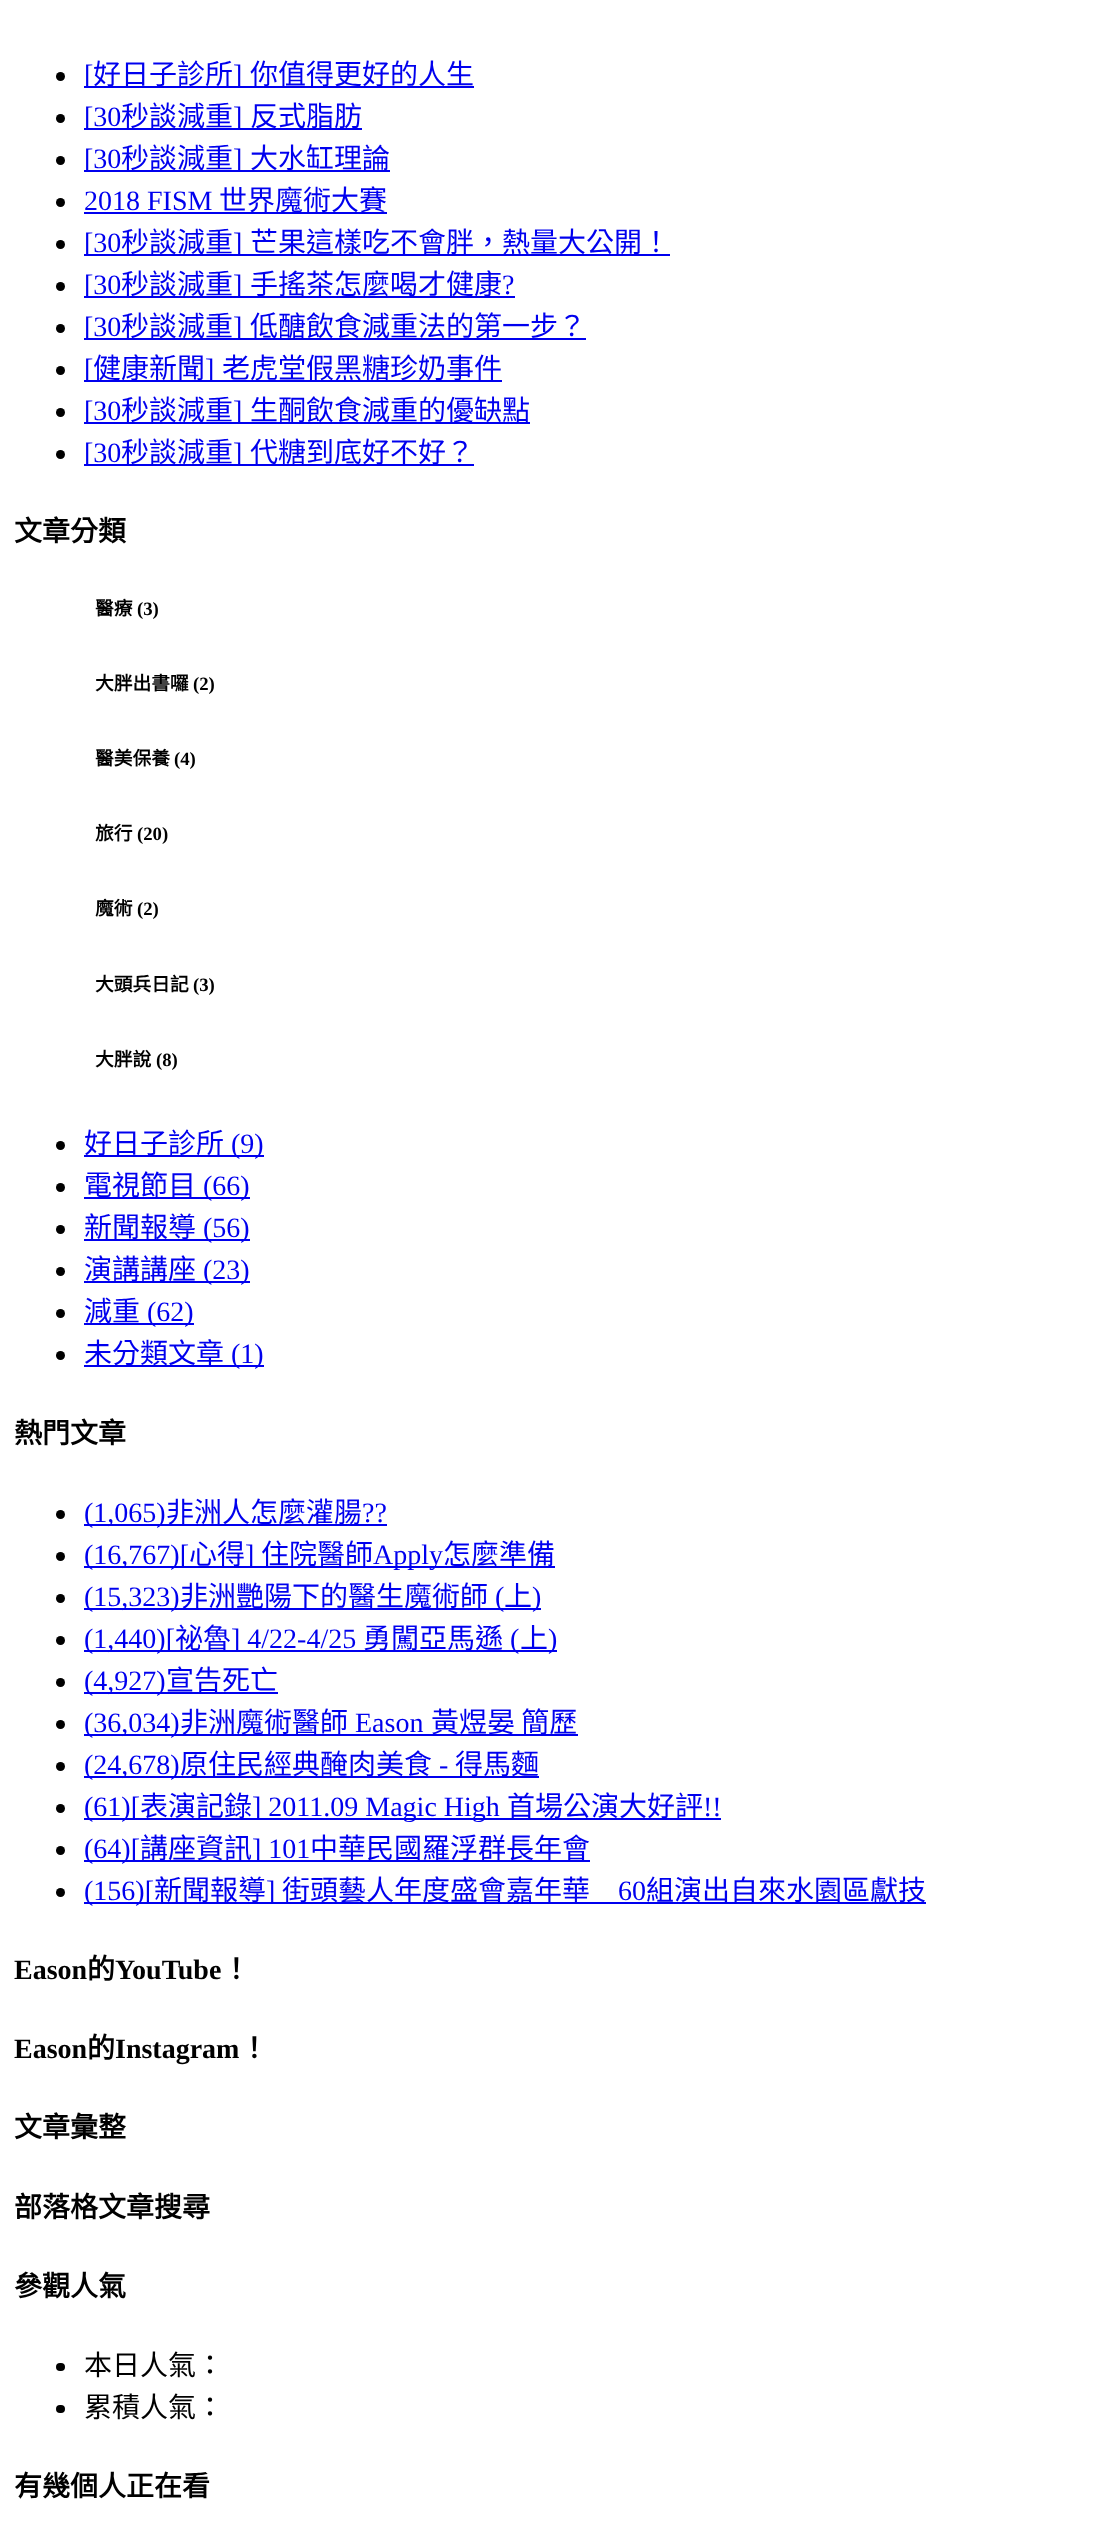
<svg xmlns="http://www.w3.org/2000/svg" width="1108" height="2542">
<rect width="100%" height="100%" fill="#fff"/>
<circle cx="60.5" cy="76.5" r="4.5" fill="#000"/>
<rect x="84" y="86" width="390" height="2" fill="#00e"/>
<text x="84" y="84" style="font-family:Liberation Serif;font-size:28px;fill:#00e">[</text>
<text x="93" y="84" style="font-family:Noto Sans CJK TC;font-size:28px;fill:#00e">好日子診所</text>
<text x="233" y="84" style="font-family:Liberation Serif;font-size:28px;fill:#00e">]</text>
<text x="250" y="84" style="font-family:Noto Sans CJK TC;font-size:28px;fill:#00e">你值得更好的人生</text>
<circle cx="60.5" cy="118.5" r="4.5" fill="#000"/>
<rect x="84" y="128" width="278" height="2" fill="#00e"/>
<text x="84" y="126" style="font-family:Liberation Serif;font-size:28px;fill:#00e">[30</text>
<text x="121" y="126" style="font-family:Noto Sans CJK TC;font-size:28px;fill:#00e">秒談減重</text>
<text x="233" y="126" style="font-family:Liberation Serif;font-size:28px;fill:#00e">]</text>
<text x="250" y="126" style="font-family:Noto Sans CJK TC;font-size:28px;fill:#00e">反式脂肪</text>
<circle cx="60.5" cy="160.5" r="4.5" fill="#000"/>
<rect x="84" y="170" width="306" height="2" fill="#00e"/>
<text x="84" y="168" style="font-family:Liberation Serif;font-size:28px;fill:#00e">[30</text>
<text x="121" y="168" style="font-family:Noto Sans CJK TC;font-size:28px;fill:#00e">秒談減重</text>
<text x="233" y="168" style="font-family:Liberation Serif;font-size:28px;fill:#00e">]</text>
<text x="250" y="168" style="font-family:Noto Sans CJK TC;font-size:28px;fill:#00e">大水缸理論</text>
<circle cx="60.5" cy="202.5" r="4.5" fill="#000"/>
<text x="84" y="210" style="font-family:Liberation Serif;font-size:28px;fill:#00e">2018 FISM</text>
<rect x="84" y="212" width="303" height="2" fill="#00e"/>
<text x="219" y="210" style="font-family:Noto Sans CJK TC;font-size:28px;fill:#00e">世界魔術大賽</text>
<circle cx="60.5" cy="244.5" r="4.5" fill="#000"/>
<rect x="84" y="254" width="586" height="2" fill="#00e"/>
<text x="84" y="252" style="font-family:Liberation Serif;font-size:28px;fill:#00e">[30</text>
<text x="121" y="252" style="font-family:Noto Sans CJK TC;font-size:28px;fill:#00e">秒談減重</text>
<text x="233" y="252" style="font-family:Liberation Serif;font-size:28px;fill:#00e">]</text>
<text x="250" y="252" style="font-family:Noto Sans CJK TC;font-size:28px;fill:#00e">芒果這樣吃不會胖，熱量大公開！</text>
<circle cx="60.5" cy="286.5" r="4.5" fill="#000"/>
<rect x="84" y="296" width="431" height="2" fill="#00e"/>
<text x="84" y="294" style="font-family:Liberation Serif;font-size:28px;fill:#00e">[30</text>
<text x="121" y="294" style="font-family:Noto Sans CJK TC;font-size:28px;fill:#00e">秒談減重</text>
<text x="233" y="294" style="font-family:Liberation Serif;font-size:28px;fill:#00e">]</text>
<text x="250" y="294" style="font-family:Noto Sans CJK TC;font-size:28px;fill:#00e">手搖茶怎麼喝才健康</text>
<text x="502" y="294" style="font-family:Liberation Serif;font-size:28px;fill:#00e">?</text>
<circle cx="60.5" cy="328.5" r="4.5" fill="#000"/>
<rect x="84" y="338" width="502" height="2" fill="#00e"/>
<text x="84" y="336" style="font-family:Liberation Serif;font-size:28px;fill:#00e">[30</text>
<text x="121" y="336" style="font-family:Noto Sans CJK TC;font-size:28px;fill:#00e">秒談減重</text>
<text x="233" y="336" style="font-family:Liberation Serif;font-size:28px;fill:#00e">]</text>
<text x="250" y="336" style="font-family:Noto Sans CJK TC;font-size:28px;fill:#00e">低醣飲食減重法的第一步？</text>
<circle cx="60.5" cy="370.5" r="4.5" fill="#000"/>
<rect x="84" y="380" width="418" height="2" fill="#00e"/>
<text x="84" y="378" style="font-family:Liberation Serif;font-size:28px;fill:#00e">[</text>
<text x="93" y="378" style="font-family:Noto Sans CJK TC;font-size:28px;fill:#00e">健康新聞</text>
<text x="205" y="378" style="font-family:Liberation Serif;font-size:28px;fill:#00e">]</text>
<text x="222" y="378" style="font-family:Noto Sans CJK TC;font-size:28px;fill:#00e">老虎堂假黑糖珍奶事件</text>
<circle cx="60.5" cy="412.5" r="4.5" fill="#000"/>
<rect x="84" y="422" width="446" height="2" fill="#00e"/>
<text x="84" y="420" style="font-family:Liberation Serif;font-size:28px;fill:#00e">[30</text>
<text x="121" y="420" style="font-family:Noto Sans CJK TC;font-size:28px;fill:#00e">秒談減重</text>
<text x="233" y="420" style="font-family:Liberation Serif;font-size:28px;fill:#00e">]</text>
<text x="250" y="420" style="font-family:Noto Sans CJK TC;font-size:28px;fill:#00e">生酮飲食減重的優缺點</text>
<circle cx="60.5" cy="454.5" r="4.5" fill="#000"/>
<rect x="84" y="464" width="390" height="2" fill="#00e"/>
<text x="84" y="462" style="font-family:Liberation Serif;font-size:28px;fill:#00e">[30</text>
<text x="121" y="462" style="font-family:Noto Sans CJK TC;font-size:28px;fill:#00e">秒談減重</text>
<text x="233" y="462" style="font-family:Liberation Serif;font-size:28px;fill:#00e">]</text>
<text x="250" y="462" style="font-family:Noto Sans CJK TC;font-size:28px;fill:#00e">代糖到底好不好？</text>
<text x="14" y="541" style="font-family:Noto Sans CJK TC;font-size:28px;font-weight:bold;fill:#000">文章分類</text>
<text x="95" y="615" style="font-family:Noto Sans CJK TC;font-size:18.75px;font-weight:bold;fill:#000">醫療</text>
<text x="137" y="615" style="font-family:Liberation Serif;font-size:18.75px;font-weight:bold;fill:#000">(3)</text>
<text x="95" y="690" style="font-family:Noto Sans CJK TC;font-size:18.75px;font-weight:bold;fill:#000">大胖出書囉</text>
<text x="193" y="690" style="font-family:Liberation Serif;font-size:18.75px;font-weight:bold;fill:#000">(2)</text>
<text x="95" y="765" style="font-family:Noto Sans CJK TC;font-size:18.75px;font-weight:bold;fill:#000">醫美保養</text>
<text x="174" y="765" style="font-family:Liberation Serif;font-size:18.75px;font-weight:bold;fill:#000">(4)</text>
<text x="95" y="840" style="font-family:Noto Sans CJK TC;font-size:18.75px;font-weight:bold;fill:#000">旅行</text>
<text x="137" y="840" style="font-family:Liberation Serif;font-size:18.75px;font-weight:bold;fill:#000">(20)</text>
<text x="95" y="915" style="font-family:Noto Sans CJK TC;font-size:18.75px;font-weight:bold;fill:#000">魔術</text>
<text x="137" y="915" style="font-family:Liberation Serif;font-size:18.75px;font-weight:bold;fill:#000">(2)</text>
<text x="95" y="991" style="font-family:Noto Sans CJK TC;font-size:18.75px;font-weight:bold;fill:#000">大頭兵日記</text>
<text x="193" y="991" style="font-family:Liberation Serif;font-size:18.75px;font-weight:bold;fill:#000">(3)</text>
<text x="95" y="1066" style="font-family:Noto Sans CJK TC;font-size:18.75px;font-weight:bold;fill:#000">大胖說</text>
<text x="156" y="1066" style="font-family:Liberation Serif;font-size:18.75px;font-weight:bold;fill:#000">(8)</text>
<circle cx="60.5" cy="1145.5" r="4.5" fill="#000"/>
<rect x="84" y="1155" width="180" height="2" fill="#00e"/>
<text x="84" y="1153" style="font-family:Noto Sans CJK TC;font-size:28px;fill:#00e">好日子診所</text>
<text x="231" y="1153" style="font-family:Liberation Serif;font-size:28px;fill:#00e">(9)</text>
<circle cx="60.5" cy="1187.5" r="4.5" fill="#000"/>
<rect x="84" y="1197" width="166" height="2" fill="#00e"/>
<text x="84" y="1195" style="font-family:Noto Sans CJK TC;font-size:28px;fill:#00e">電視節目</text>
<text x="203" y="1195" style="font-family:Liberation Serif;font-size:28px;fill:#00e">(66)</text>
<circle cx="60.5" cy="1229.5" r="4.5" fill="#000"/>
<rect x="84" y="1239" width="166" height="2" fill="#00e"/>
<text x="84" y="1237" style="font-family:Noto Sans CJK TC;font-size:28px;fill:#00e">新聞報導</text>
<text x="203" y="1237" style="font-family:Liberation Serif;font-size:28px;fill:#00e">(56)</text>
<circle cx="60.5" cy="1271.5" r="4.5" fill="#000"/>
<rect x="84" y="1281" width="166" height="2" fill="#00e"/>
<text x="84" y="1279" style="font-family:Noto Sans CJK TC;font-size:28px;fill:#00e">演講講座</text>
<text x="203" y="1279" style="font-family:Liberation Serif;font-size:28px;fill:#00e">(23)</text>
<circle cx="60.5" cy="1313.5" r="4.5" fill="#000"/>
<rect x="84" y="1323" width="110" height="2" fill="#00e"/>
<text x="84" y="1321" style="font-family:Noto Sans CJK TC;font-size:28px;fill:#00e">減重</text>
<text x="147" y="1321" style="font-family:Liberation Serif;font-size:28px;fill:#00e">(62)</text>
<circle cx="60.5" cy="1355.5" r="4.5" fill="#000"/>
<rect x="84" y="1365" width="180" height="2" fill="#00e"/>
<text x="84" y="1363" style="font-family:Noto Sans CJK TC;font-size:28px;fill:#00e">未分類文章</text>
<text x="231" y="1363" style="font-family:Liberation Serif;font-size:28px;fill:#00e">(1)</text>
<text x="14" y="1443" style="font-family:Noto Sans CJK TC;font-size:28px;font-weight:bold;fill:#000">熱門文章</text>
<circle cx="60.5" cy="1514.5" r="4.5" fill="#000"/>
<rect x="84" y="1524" width="303" height="2" fill="#00e"/>
<text x="84" y="1522" style="font-family:Liberation Serif;font-size:28px;fill:#00e">(1,065)</text>
<text x="166" y="1522" style="font-family:Noto Sans CJK TC;font-size:28px;fill:#00e">非洲人怎麼灌腸</text>
<text x="362" y="1522" style="font-family:Liberation Serif;font-size:28px;fill:#00e">??</text>
<circle cx="60.5" cy="1556.5" r="4.5" fill="#000"/>
<rect x="84" y="1566" width="471" height="2" fill="#00e"/>
<text x="84" y="1564" style="font-family:Liberation Serif;font-size:28px;fill:#00e">(16,767)[</text>
<text x="189" y="1564" style="font-family:Noto Sans CJK TC;font-size:28px;fill:#00e">心得</text>
<text x="245" y="1564" style="font-family:Liberation Serif;font-size:28px;fill:#00e">]</text>
<text x="261" y="1564" style="font-family:Noto Sans CJK TC;font-size:28px;fill:#00e">住院醫師</text>
<text x="373" y="1564" style="font-family:Liberation Serif;font-size:28px;fill:#00e">Apply</text>
<text x="443" y="1564" style="font-family:Noto Sans CJK TC;font-size:28px;fill:#00e">怎麼準備</text>
<circle cx="60.5" cy="1598.5" r="4.5" fill="#000"/>
<rect x="84" y="1608" width="457" height="2" fill="#00e"/>
<text x="84" y="1606" style="font-family:Liberation Serif;font-size:28px;fill:#00e">(15,323)</text>
<text x="180" y="1606" style="font-family:Noto Sans CJK TC;font-size:28px;fill:#00e">非洲艷陽下的醫生魔術師</text>
<text x="495" y="1606" style="font-family:Liberation Serif;font-size:28px;fill:#00e">(</text>
<text x="504" y="1606" style="font-family:Noto Sans CJK TC;font-size:28px;fill:#00e">上</text>
<text x="532" y="1606" style="font-family:Liberation Serif;font-size:28px;fill:#00e">)</text>
<circle cx="60.5" cy="1640.5" r="4.5" fill="#000"/>
<rect x="84" y="1650" width="473" height="2" fill="#00e"/>
<text x="84" y="1648" style="font-family:Liberation Serif;font-size:28px;fill:#00e">(1,440)[</text>
<text x="175" y="1648" style="font-family:Noto Sans CJK TC;font-size:28px;fill:#00e">祕魯</text>
<text x="231" y="1648" style="font-family:Liberation Serif;font-size:28px;fill:#00e">] 4/22-4/25</text>
<text x="363" y="1648" style="font-family:Noto Sans CJK TC;font-size:28px;fill:#00e">勇闖亞馬遜</text>
<text x="510" y="1648" style="font-family:Liberation Serif;font-size:28px;fill:#00e">(</text>
<text x="520" y="1648" style="font-family:Noto Sans CJK TC;font-size:28px;fill:#00e">上</text>
<text x="548" y="1648" style="font-family:Liberation Serif;font-size:28px;fill:#00e">)</text>
<circle cx="60.5" cy="1682.5" r="4.5" fill="#000"/>
<rect x="84" y="1692" width="194" height="2" fill="#00e"/>
<text x="84" y="1690" style="font-family:Liberation Serif;font-size:28px;fill:#00e">(4,927)</text>
<text x="166" y="1690" style="font-family:Noto Sans CJK TC;font-size:28px;fill:#00e">宣告死亡</text>
<circle cx="60.5" cy="1724.5" r="4.5" fill="#000"/>
<rect x="84" y="1734" width="494" height="2" fill="#00e"/>
<text x="84" y="1732" style="font-family:Liberation Serif;font-size:28px;fill:#00e">(36,034)</text>
<text x="180" y="1732" style="font-family:Noto Sans CJK TC;font-size:28px;fill:#00e">非洲魔術醫師</text>
<text x="355" y="1732" style="font-family:Liberation Serif;font-size:28px;fill:#00e">Eason</text>
<text x="431" y="1732" style="font-family:Noto Sans CJK TC;font-size:28px;fill:#00e">黃煜晏 簡歷</text>
<circle cx="60.5" cy="1766.5" r="4.5" fill="#000"/>
<rect x="84" y="1776" width="455" height="2" fill="#00e"/>
<text x="84" y="1774" style="font-family:Liberation Serif;font-size:28px;fill:#00e">(24,678)</text>
<text x="180" y="1774" style="font-family:Noto Sans CJK TC;font-size:28px;fill:#00e">原住民經典醃肉美食</text>
<text x="439" y="1774" style="font-family:Liberation Serif;font-size:28px;fill:#00e">-</text>
<text x="455" y="1774" style="font-family:Noto Sans CJK TC;font-size:28px;fill:#00e">得馬麵</text>
<circle cx="60.5" cy="1808.5" r="4.5" fill="#000"/>
<rect x="84" y="1818" width="637" height="2" fill="#00e"/>
<text x="84" y="1816" style="font-family:Liberation Serif;font-size:28px;fill:#00e">(61)[</text>
<text x="140" y="1816" style="font-family:Noto Sans CJK TC;font-size:28px;fill:#00e">表演記錄</text>
<text x="252" y="1816" style="font-family:Liberation Serif;font-size:28px;fill:#00e">] 2011.09 Magic High</text>
<text x="507" y="1816" style="font-family:Noto Sans CJK TC;font-size:28px;fill:#00e">首場公演大好評</text>
<text x="703" y="1816" style="font-family:Liberation Serif;font-size:28px;fill:#00e">!!</text>
<circle cx="60.5" cy="1850.5" r="4.5" fill="#000"/>
<rect x="84" y="1860" width="506" height="2" fill="#00e"/>
<text x="84" y="1858" style="font-family:Liberation Serif;font-size:28px;fill:#00e">(64)[</text>
<text x="140" y="1858" style="font-family:Noto Sans CJK TC;font-size:28px;fill:#00e">講座資訊</text>
<text x="252" y="1858" style="font-family:Liberation Serif;font-size:28px;fill:#00e">] 101</text>
<text x="310" y="1858" style="font-family:Noto Sans CJK TC;font-size:28px;fill:#00e">中華民國羅浮群長年會</text>
<circle cx="60.5" cy="1892.5" r="4.5" fill="#000"/>
<rect x="84" y="1902" width="842" height="2" fill="#00e"/>
<text x="84" y="1900" style="font-family:Liberation Serif;font-size:28px;fill:#00e">(156)[</text>
<text x="154" y="1900" style="font-family:Noto Sans CJK TC;font-size:28px;fill:#00e">新聞報導</text>
<text x="266" y="1900" style="font-family:Liberation Serif;font-size:28px;fill:#00e">]</text>
<text x="282" y="1900" style="font-family:Noto Sans CJK TC;font-size:28px;fill:#00e">街頭藝人年度盛會嘉年華</text>
<text x="618" y="1900" style="font-family:Liberation Serif;font-size:28px;fill:#00e">60</text>
<text x="646" y="1900" style="font-family:Noto Sans CJK TC;font-size:28px;fill:#00e">組演出自來水園區獻技</text>
<text x="14" y="1979" style="font-family:Liberation Serif;font-size:28px;font-weight:bold;fill:#000">Eason</text>
<text x="87" y="1979" style="font-family:Noto Sans CJK TC;font-size:28px;font-weight:bold;fill:#000">的</text>
<text x="115" y="1979" style="font-family:Liberation Serif;font-size:28px;font-weight:bold;fill:#000">YouTube</text>
<text x="222" y="1979" style="font-family:Noto Sans CJK TC;font-size:28px;font-weight:bold;fill:#000">！</text>
<text x="14" y="2058" style="font-family:Liberation Serif;font-size:28px;font-weight:bold;fill:#000">Eason</text>
<text x="87" y="2058" style="font-family:Noto Sans CJK TC;font-size:28px;font-weight:bold;fill:#000">的</text>
<text x="115" y="2058" style="font-family:Liberation Serif;font-size:28px;font-weight:bold;fill:#000">Instagram</text>
<text x="240" y="2058" style="font-family:Noto Sans CJK TC;font-size:28px;font-weight:bold;fill:#000">！</text>
<text x="14" y="2137" style="font-family:Noto Sans CJK TC;font-size:28px;font-weight:bold;fill:#000">文章彙整</text>
<text x="14" y="2217" style="font-family:Noto Sans CJK TC;font-size:28px;font-weight:bold;fill:#000">部落格文章搜尋</text>
<text x="14" y="2296" style="font-family:Noto Sans CJK TC;font-size:28px;font-weight:bold;fill:#000">參觀人氣</text>
<rect x="56" y="2363" width="9" height="8" rx="4" fill="#000"/>
<text x="84" y="2375" style="font-family:Noto Sans CJK TC;font-size:28px;fill:#000">本日人氣：</text>
<rect x="56" y="2405" width="9" height="8" rx="4" fill="#000"/>
<text x="84" y="2417" style="font-family:Noto Sans CJK TC;font-size:28px;fill:#000">累積人氣：</text>
<text x="14" y="2496" style="font-family:Noto Sans CJK TC;font-size:28px;font-weight:bold;fill:#000">有幾個人正在看</text>
</svg>
